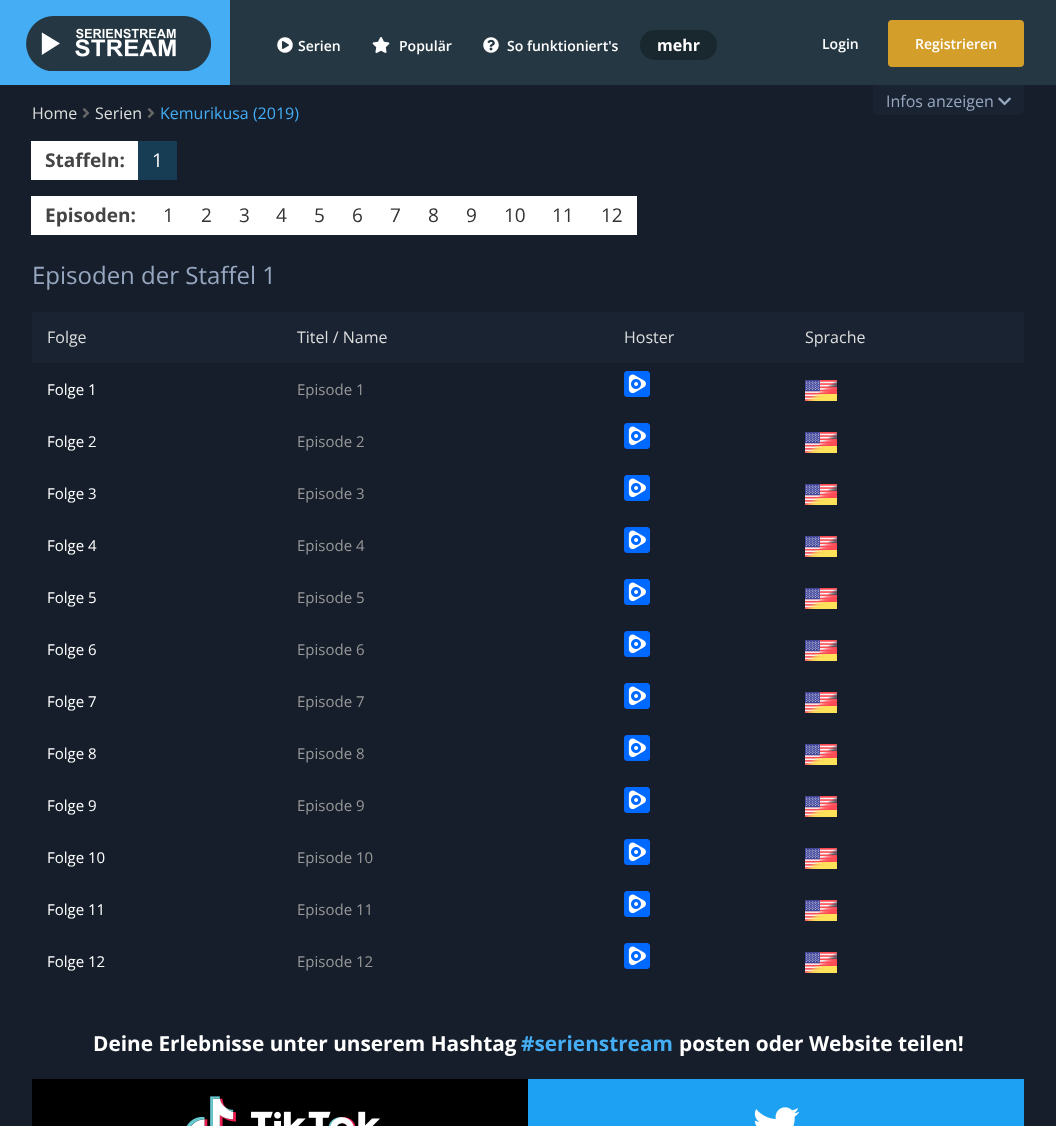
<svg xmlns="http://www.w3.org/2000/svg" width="1056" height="1126">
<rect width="100%" height="100%" fill="#151e2a"/>
<rect width="230" height="85" fill="#44adf3"/>
<rect x="230" width="826" height="85" fill="#243743"/>
<image x="26" y="16" width="185" height="55" href="media/1.png"/>
<image x="277" y="37" width="16" height="16" href="media/2.png"/>
<text x="298" y="51" style="font-family:Open Sans;font-size:14px;font-weight:600;fill:#fff">Serien</text>
<image x="372" y="37" width="18" height="16" href="media/3.png"/>
<text x="399" y="51" style="font-family:Open Sans;font-size:14px;font-weight:600;fill:#fff">Populär</text>
<image x="483" y="37" width="16" height="16" href="media/4.png"/>
<text x="507" y="51" style="font-family:Open Sans;font-size:14px;font-weight:600;fill:#fff">So funktioniert's</text>
<rect x="640" y="30" width="77" height="30" rx="15" fill="#19272f"/>
<text x="657" y="51" style="font-family:Open Sans;font-size:16px;font-weight:bold;fill:#fff">mehr</text>
<text x="822" y="49" style="font-family:Open Sans;font-size:14px;font-weight:600;fill:#fff">Login</text>
<rect x="889" y="21" width="134" height="45" rx="3" fill="#d49e2b" stroke="#d49e2b" stroke-width="2"/>
<text x="915" y="49" style="font-family:Open Sans;font-size:14px;font-weight:600;fill:#fff">Registrieren</text>
<path d="M873 85h151v26c0 2-2 4-4 4h-143c-2 0-4-2-4-4z" fill="#192332"/>
<text x="886" y="107" style="font-family:Open Sans;font-size:16px;fill:#97a7c0">Infos anzeigen</text>
<image x="998" y="97" width="13" height="9" href="media/5.png"/>
<text x="32" y="119" style="font-family:Open Sans;font-size:16px;fill:#ddd">Home</text>
<image x="82" y="108" width="8" height="10" href="media/6.png"/>
<text x="95" y="119" style="font-family:Open Sans;font-size:16px;fill:#ddd">Serien</text>
<image x="147" y="108" width="8" height="10" href="media/6.png"/>
<text x="160" y="119" style="font-family:Open Sans;font-size:16px;fill:#44adf3">Kemurikusa (2019)</text>
<rect x="31" y="141" width="107" height="39" fill="#fff"/>
<text x="45" y="167" style="font-family:Open Sans;font-size:19px;font-weight:bold;fill:#444">Staffeln:</text>
<rect x="138" y="141" width="39" height="39" fill="#173d54"/>
<text x="152" y="167" style="font-family:Open Sans;font-size:19px;fill:#fff">1</text>
<rect x="31" y="196" width="606" height="39" fill="#fff"/>
<text x="45" y="222" style="font-family:Open Sans;font-size:19px;font-weight:bold;fill:#444">Episoden:</text>
<text x="163" y="222" style="font-family:Open Sans;font-size:19px;fill:#333">1</text>
<text x="201" y="222" style="font-family:Open Sans;font-size:19px;fill:#333">2</text>
<text x="239" y="222" style="font-family:Open Sans;font-size:19px;fill:#333">3</text>
<text x="276" y="222" style="font-family:Open Sans;font-size:19px;fill:#333">4</text>
<text x="314" y="222" style="font-family:Open Sans;font-size:19px;fill:#333">5</text>
<text x="352" y="222" style="font-family:Open Sans;font-size:19px;fill:#333">6</text>
<text x="390" y="222" style="font-family:Open Sans;font-size:19px;fill:#333">7</text>
<text x="428" y="222" style="font-family:Open Sans;font-size:19px;fill:#333">8</text>
<text x="466" y="222" style="font-family:Open Sans;font-size:19px;fill:#333">9</text>
<text x="504" y="222" style="font-family:Open Sans;font-size:19px;fill:#333">10</text>
<text x="552" y="222" style="font-family:Open Sans;font-size:19px;fill:#333">11</text>
<text x="601" y="222" style="font-family:Open Sans;font-size:19px;fill:#333">12</text>
<text x="32" y="284" style="font-family:Open Sans;font-size:24px;fill:#97a7c0">Episoden der Staffel 1</text>
<rect x="32" y="312" width="992" height="51" fill="#192332"/>
<text x="47" y="343" style="font-family:Open Sans;font-size:16px;fill:#ddd">Folge</text>
<text x="297" y="343" style="font-family:Open Sans;font-size:16px;fill:#ddd">Titel / Name</text>
<text x="624" y="343" style="font-family:Open Sans;font-size:16px;fill:#ddd">Hoster</text>
<text x="805" y="343" style="font-family:Open Sans;font-size:16px;fill:#ddd">Sprache</text>
<text x="47" y="395" style="font-family:Open Sans;font-size:15px;fill:#fff">Folge 1</text>
<text x="297" y="395" style="font-family:Open Sans;font-size:15px;fill:#999">Episode 1</text>
<image x="624" y="371" width="26" height="26" href="media/7.png"/>
<image x="805" y="380" width="32" height="21" href="media/8.png"/>
<text x="47" y="447" style="font-family:Open Sans;font-size:15px;fill:#fff">Folge 2</text>
<text x="297" y="447" style="font-family:Open Sans;font-size:15px;fill:#999">Episode 2</text>
<image x="624" y="423" width="26" height="26" href="media/7.png"/>
<image x="805" y="432" width="32" height="21" href="media/8.png"/>
<text x="47" y="499" style="font-family:Open Sans;font-size:15px;fill:#fff">Folge 3</text>
<text x="297" y="499" style="font-family:Open Sans;font-size:15px;fill:#999">Episode 3</text>
<image x="624" y="475" width="26" height="26" href="media/7.png"/>
<image x="805" y="484" width="32" height="21" href="media/8.png"/>
<text x="47" y="551" style="font-family:Open Sans;font-size:15px;fill:#fff">Folge 4</text>
<text x="297" y="551" style="font-family:Open Sans;font-size:15px;fill:#999">Episode 4</text>
<image x="624" y="527" width="26" height="26" href="media/7.png"/>
<image x="805" y="536" width="32" height="21" href="media/8.png"/>
<text x="47" y="603" style="font-family:Open Sans;font-size:15px;fill:#fff">Folge 5</text>
<text x="297" y="603" style="font-family:Open Sans;font-size:15px;fill:#999">Episode 5</text>
<image x="624" y="579" width="26" height="26" href="media/7.png"/>
<image x="805" y="588" width="32" height="21" href="media/8.png"/>
<text x="47" y="655" style="font-family:Open Sans;font-size:15px;fill:#fff">Folge 6</text>
<text x="297" y="655" style="font-family:Open Sans;font-size:15px;fill:#999">Episode 6</text>
<image x="624" y="631" width="26" height="26" href="media/7.png"/>
<image x="805" y="640" width="32" height="21" href="media/8.png"/>
<text x="47" y="707" style="font-family:Open Sans;font-size:15px;fill:#fff">Folge 7</text>
<text x="297" y="707" style="font-family:Open Sans;font-size:15px;fill:#999">Episode 7</text>
<image x="624" y="683" width="26" height="26" href="media/7.png"/>
<image x="805" y="692" width="32" height="21" href="media/8.png"/>
<text x="47" y="759" style="font-family:Open Sans;font-size:15px;fill:#fff">Folge 8</text>
<text x="297" y="759" style="font-family:Open Sans;font-size:15px;fill:#999">Episode 8</text>
<image x="624" y="735" width="26" height="26" href="media/7.png"/>
<image x="805" y="744" width="32" height="21" href="media/9.png"/>
<text x="47" y="811" style="font-family:Open Sans;font-size:15px;fill:#fff">Folge 9</text>
<text x="297" y="811" style="font-family:Open Sans;font-size:15px;fill:#999">Episode 9</text>
<image x="624" y="787" width="26" height="26" href="media/7.png"/>
<image x="805" y="796" width="32" height="21" href="media/8.png"/>
<text x="47" y="863" style="font-family:Open Sans;font-size:15px;fill:#fff">Folge 10</text>
<text x="297" y="863" style="font-family:Open Sans;font-size:15px;fill:#999">Episode 10</text>
<image x="624" y="839" width="26" height="26" href="media/7.png"/>
<image x="805" y="848" width="32" height="21" href="media/8.png"/>
<text x="47" y="915" style="font-family:Open Sans;font-size:15px;fill:#fff">Folge 11</text>
<text x="297" y="915" style="font-family:Open Sans;font-size:15px;fill:#999">Episode 11</text>
<image x="624" y="891" width="26" height="26" href="media/7.png"/>
<image x="805" y="900" width="32" height="21" href="media/8.png"/>
<text x="47" y="967" style="font-family:Open Sans;font-size:15px;fill:#fff">Folge 12</text>
<text x="297" y="967" style="font-family:Open Sans;font-size:15px;fill:#999">Episode 12</text>
<image x="624" y="943" width="26" height="26" href="media/7.png"/>
<image x="805" y="952" width="32" height="21" href="media/8.png"/>
<text x="93" y="1051" style="font-family:Open Sans;font-size:20.8px;font-weight:bold;fill:#fff">Deine Erlebnisse unter unserem Hashtag</text>
<text x="521" y="1051" style="font-family:Open Sans;font-size:20.8px;font-weight:bold;fill:#44adf3">#serienstream</text>
<text x="679" y="1051" style="font-family:Open Sans;font-size:20.8px;font-weight:bold;fill:#fff">posten oder Website teilen!</text>
<rect x="32" y="1079" width="496" height="47" fill="#000"/>
<image x="186" y="1096" width="194" height="30" href="media/10.png"/>
<rect x="528" y="1079" width="496" height="47" fill="#1da1f2"/>
<image x="754" y="1107" width="46" height="19" href="media/11.png"/>
</svg>
